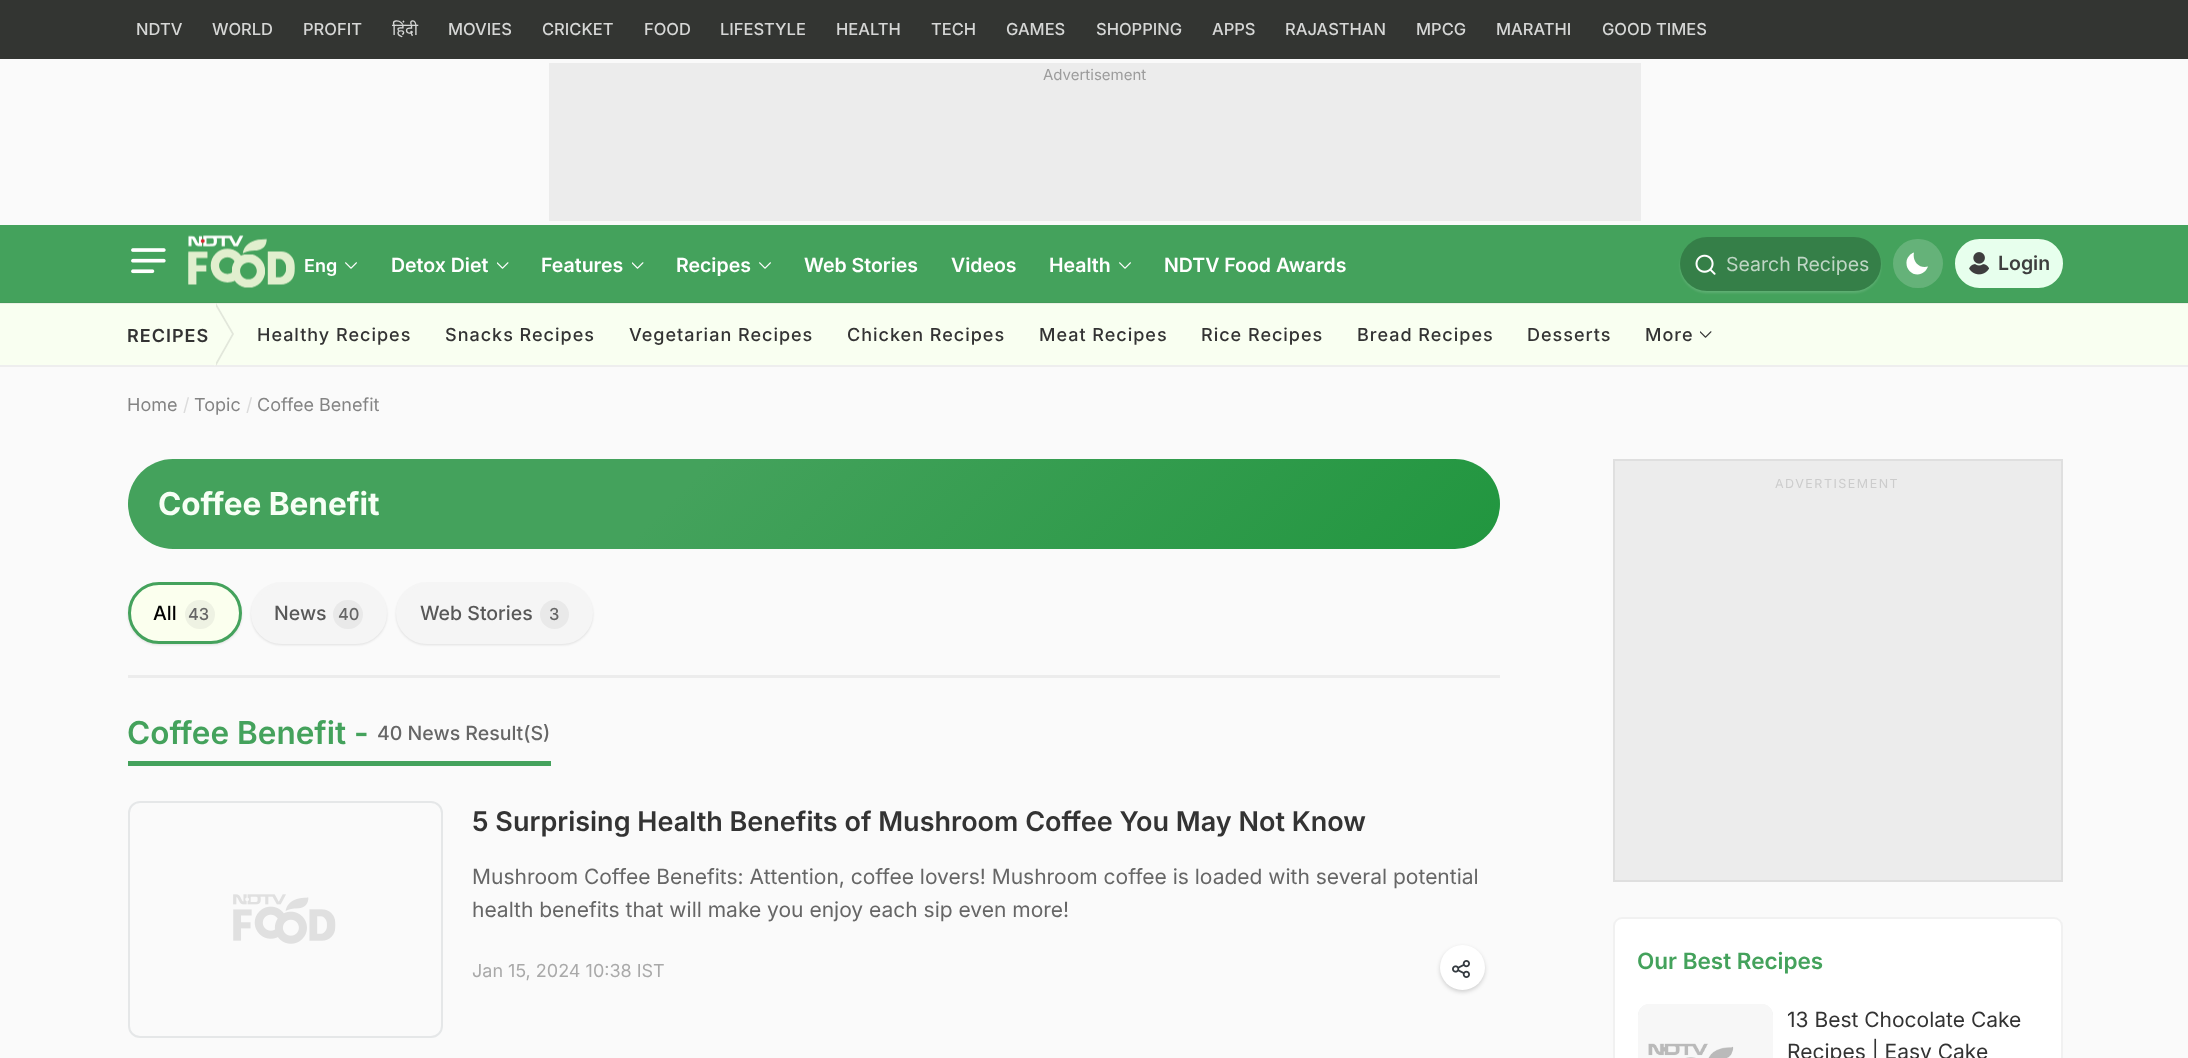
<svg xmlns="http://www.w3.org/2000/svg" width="2188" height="1058">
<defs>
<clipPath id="clip1"><path d="M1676 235h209v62h-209zm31 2h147c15 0 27 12 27 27c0 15-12 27-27 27h-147c-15 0-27-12-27-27c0-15 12-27 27-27z" clip-rule="evenodd"/></clipPath>
<linearGradient id="g1" gradientUnits="userSpaceOnUse" x1="1179" y1="870" x2="448" y2="138"><stop offset="0" stop-color="#21963f"/><stop offset="0.6" stop-color="#44a25c"/></linearGradient>
</defs>
<rect width="100%" height="100%" fill="#fafafa"/>
<rect width="2188" height="59" fill="#333532"/>
<text x="136" y="35" style="font-family:Inter;font-size:16.5px;font-weight:500;fill:#d6d7d6">NDTV</text>
<text x="212" y="35" style="font-family:Inter;font-size:16.5px;font-weight:500;fill:#d6d7d6">WORLD</text>
<text x="303" y="35" style="font-family:Inter;font-size:16.5px;font-weight:500;fill:#d6d7d6">PROFIT</text>
<text x="392" y="35" style="font-family:Noto Sans;font-size:16.5px;fill:#d6d7d6">हिंदी</text>
<text x="448" y="35" style="font-family:Inter;font-size:16.5px;font-weight:500;fill:#d6d7d6">MOVIES</text>
<text x="542" y="35" style="font-family:Inter;font-size:16.5px;font-weight:500;fill:#d6d7d6">CRICKET</text>
<text x="644" y="35" style="font-family:Inter;font-size:16.5px;font-weight:500;fill:#d6d7d6">FOOD</text>
<text x="720" y="35" style="font-family:Inter;font-size:16.5px;font-weight:500;fill:#d6d7d6">LIFESTYLE</text>
<text x="836" y="35" style="font-family:Inter;font-size:16.5px;font-weight:500;fill:#d6d7d6">HEALTH</text>
<text x="931" y="35" style="font-family:Inter;font-size:16.5px;font-weight:500;fill:#d6d7d6">TECH</text>
<text x="1006" y="35" style="font-family:Inter;font-size:16.5px;font-weight:500;fill:#d6d7d6">GAMES</text>
<text x="1096" y="35" style="font-family:Inter;font-size:16.5px;font-weight:500;fill:#d6d7d6">SHOPPING</text>
<text x="1212" y="35" style="font-family:Inter;font-size:16.5px;font-weight:500;fill:#d6d7d6">APPS</text>
<text x="1285" y="35" style="font-family:Inter;font-size:16.5px;font-weight:500;fill:#d6d7d6">RAJASTHAN</text>
<text x="1416" y="35" style="font-family:Inter;font-size:16.5px;font-weight:500;fill:#d6d7d6">MPCG</text>
<text x="1496" y="35" style="font-family:Inter;font-size:16.5px;font-weight:500;fill:#d6d7d6">MARATHI</text>
<text x="1602" y="35" style="font-family:Inter;font-size:16.5px;font-weight:500;fill:#d6d7d6">GOOD TIMES</text>
<rect x="549" y="63" width="1092" height="158" fill="#ececec"/>
<text x="1043" y="80" style="font-family:Inter;font-size:15px;fill:#9c9c9c">Advertisement</text>
<rect y="225" width="2188" height="78" fill="#44a25c"/>
<rect y="303" width="2188" height="62" fill="#f9fff1"/>
<rect y="365" width="2188" height="2" fill="#eee"/>
<path d="M216 366v-63l18 31z" fill="#e2e7db"/>
<path d="M214 366v-63l18 31z" fill="#f9fff1"/>
<rect y="302" width="2188" height="2" fill="#33333312"/>
<image x="131" y="248" width="35" height="26" href="media/1.png"/>
<image x="188" y="235" width="107" height="53" href="media/2.png"/>
<text x="304" y="272" style="font-family:Inter;font-size:18px;font-weight:600;fill:#fff">Eng</text>
<image x="345" y="262" width="12" height="7" href="media/3.png"/>
<text x="391" y="272" style="font-family:Inter;font-size:19.5px;font-weight:600;fill:#fff">Detox Diet</text>
<image x="497" y="262" width="12" height="7" href="media/4.png"/>
<text x="541" y="272" style="font-family:Inter;font-size:19.5px;font-weight:600;fill:#fff">Features</text>
<image x="632" y="262" width="12" height="7" href="media/4.png"/>
<text x="676" y="272" style="font-family:Inter;font-size:19.5px;font-weight:600;fill:#fff">Recipes</text>
<image x="759" y="262" width="12" height="7" href="media/3.png"/>
<text x="804" y="272" style="font-family:Inter;font-size:19.5px;font-weight:600;fill:#fff">Web Stories</text>
<text x="951" y="272" style="font-family:Inter;font-size:19.5px;font-weight:600;fill:#fff">Videos</text>
<text x="1049" y="272" style="font-family:Inter;font-size:19.5px;font-weight:600;fill:#fff">Health</text>
<image x="1119" y="262" width="12" height="7" href="media/3.png"/>
<text x="1164" y="272" style="font-family:Inter;font-size:19.5px;font-weight:600;fill:#fff">NDTV Food Awards</text>
<g clip-path="url(#clip1)">
<rect x="1680" y="239" width="201" height="54" rx="27" fill="#ffffff24" filter="blur(1px)"/>
</g>
<rect x="1680" y="237" width="201" height="54" rx="27" fill="#00000036"/>
<image x="1695" y="254" width="21" height="21" href="media/5.png"/>
<text x="1726" y="271" style="font-family:Inter;font-size:19.5px;fill:#bfd6c5">Search Recipes</text>
<rect x="1893" y="239" width="50" height="49" rx="24.5" fill="#ffffff2e"/>
<path d="M1928 266.5c-8.5 2.5-16-5-14-14c-4.5 1.5-8 6-7.5 11c0 6 5 11 11 11c5-.5 9-3.5 10.5-8z" fill="#fff"/>
<rect x="1956.5" y="240.5" width="105" height="46" rx="23" fill="#e7ffed" stroke="#e8ffed" stroke-width="3"/>
<image x="1969" y="252" width="20" height="23" href="media/6.png"/>
<text x="1998" y="270" style="font-family:Inter;font-size:19.5px;font-weight:600;fill:#3e3e3e">Login</text>
<text x="127" y="342" style="font-family:Inter;font-size:18px;font-weight:600;letter-spacing:1px;fill:#333">RECIPES</text>
<text x="257" y="341" style="font-family:Inter;font-size:18px;font-weight:500;letter-spacing:1px;fill:#333">Healthy Recipes</text>
<text x="445" y="341" style="font-family:Inter;font-size:18px;font-weight:500;letter-spacing:1px;fill:#333">Snacks Recipes</text>
<text x="629" y="341" style="font-family:Inter;font-size:18px;font-weight:500;letter-spacing:1px;fill:#333">Vegetarian Recipes</text>
<text x="847" y="341" style="font-family:Inter;font-size:18px;font-weight:500;letter-spacing:1px;fill:#333">Chicken Recipes</text>
<text x="1039" y="341" style="font-family:Inter;font-size:18px;font-weight:500;letter-spacing:1px;fill:#333">Meat Recipes</text>
<text x="1201" y="341" style="font-family:Inter;font-size:18px;font-weight:500;letter-spacing:1px;fill:#333">Rice Recipes</text>
<text x="1357" y="341" style="font-family:Inter;font-size:18px;font-weight:500;letter-spacing:1px;fill:#333">Bread Recipes</text>
<text x="1527" y="341" style="font-family:Inter;font-size:18px;font-weight:500;letter-spacing:1px;fill:#333">Desserts</text>
<text x="1645" y="341" style="font-family:Inter;font-size:18px;font-weight:500;letter-spacing:1px;fill:#333">More</text>
<image x="1700" y="331" width="12" height="7" href="media/7.png"/>
<text x="127" y="411" style="font-family:Inter;font-size:18px;fill:#848484">Home</text>
<text x="183" y="411" style="font-family:Inter;font-size:18px;fill:#dcdcdc">/</text>
<text x="194" y="411" style="font-family:Inter;font-size:18px;fill:#848484">Topic</text>
<text x="246" y="411" style="font-family:Inter;font-size:18px;fill:#dcdcdc">/</text>
<text x="257" y="411" style="font-family:Inter;font-size:18px;fill:#848484">Coffee Benefit</text>
<rect x="128" y="459" width="1372" height="90" rx="45" fill="url(#g1)"/>
<text x="158" y="515" style="font-family:Inter;font-size:31.5px;font-weight:bold;fill:#f7fff5">Coffee Benefit</text>
<rect x="128" y="584" width="114" height="61" rx="30.5" fill="#0000001a" filter="blur(1px)"/>
<rect x="129.5" y="583.5" width="111" height="59" rx="29.5" fill="#fbffee" stroke="#44a25c" stroke-width="3"/>
<text x="153" y="620" style="font-family:Inter;font-size:19.5px;font-weight:500;fill:#000">All</text>
<rect x="185" y="600" width="30" height="29" rx="14.5" fill="#eef2e3"/>
<text x="188" y="620" style="font-family:Inter;font-size:16.5px;font-weight:500;fill:#666">43</text>
<rect x="251" y="584" width="136" height="61" rx="30.5" fill="#0000001a" filter="blur(1px)"/>
<rect x="252.5" y="583.5" width="133" height="59" rx="29.5" fill="#f5f5f5" stroke="#f5f5f5" stroke-width="3"/>
<text x="274" y="620" style="font-family:Inter;font-size:19.5px;font-weight:500;fill:#585858">News</text>
<rect x="333" y="600" width="30" height="29" rx="14.5" fill="#e9e9e9"/>
<text x="338" y="620" style="font-family:Inter;font-size:16.5px;font-weight:500;fill:#666">40</text>
<rect x="396" y="584" width="197" height="61" rx="30.5" fill="#0000001a" filter="blur(1px)"/>
<rect x="397.5" y="583.5" width="194" height="59" rx="29.5" fill="#f5f5f5" stroke="#f5f5f5" stroke-width="3"/>
<text x="420" y="620" style="font-family:Inter;font-size:19.5px;font-weight:500;fill:#585858">Web Stories</text>
<circle cx="554.5" cy="614.5" r="14.5" fill="#e9e9e9"/>
<text x="549" y="620" style="font-family:Inter;font-size:16.5px;font-weight:500;fill:#666">3</text>
<rect x="128" y="675" width="1372" height="3" fill="#ececec"/>
<rect x="128" y="761" width="423" height="5" fill="#44a25c"/>
<text x="127" y="744" style="font-family:Inter;font-size:31.5px;font-weight:600;fill:#44a25c">Coffee Benefit -</text>
<text x="377" y="740" style="font-family:Inter;font-size:19.5px;font-weight:500;fill:#666">40 News Result(S)</text>
<image x="233" y="894" width="103" height="50" href="media/8.png"/>
<rect x="129" y="802" width="313" height="235" rx="11" fill="none" stroke="#e5e7e8" stroke-width="2"/>
<text x="472" y="831" style="font-family:Inter;font-size:27px;font-weight:600;fill:#333">5 Surprising Health Benefits of Mushroom Coffee You May Not Know</text>
<text x="472" y="884" style="font-family:Inter;font-size:21px;fill:#666">Mushroom Coffee Benefits: Attention, coffee lovers! Mushroom coffee is loaded with several potential</text>
<text x="472" y="917" style="font-family:Inter;font-size:21px;fill:#666">health benefits that will make you enjoy each sip even more!</text>
<text x="472" y="977" style="font-family:Inter;font-size:18px;fill:#a9a9a9">Jan 15, 2024 10:38 IST</text>
<rect x="1440" y="947" width="45" height="45" rx="22.5" fill="#0000002b" filter="blur(2px)"/>
<circle cx="1462.5" cy="967.5" r="22.5" fill="#fff"/>
<image x="1452" y="960" width="18" height="18" href="media/9.png"/>
<rect x="1614" y="460" width="448" height="421" fill="#ececec" stroke="#dfdfdf" stroke-width="2"/>
<text x="1775" y="488" style="font-family:Inter;font-size:12.5px;letter-spacing:1.5px;fill:#ccc">ADVERTISEMENT</text>
<rect x="1613" y="917" width="450" height="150" rx="9" fill="#fff"/>
<rect x="1614" y="918" width="448" height="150" rx="8" fill="none" stroke="#33333312" stroke-width="2"/>
<text x="1637" y="969" style="font-family:Inter;font-size:22.5px;font-weight:600;fill:#44a25c">Our Best Recipes</text>
<rect x="1639" y="1005" width="133" height="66" rx="11" fill="none" stroke="#e5e7e8" stroke-width="2"/>
<image x="1638" y="1004" width="135" height="54" href="media/10.png"/>
<text x="1787" y="1027" style="font-family:Inter;font-size:21px;fill:#333">13 Best Chocolate Cake</text>
<text x="1787" y="1059" style="font-family:Inter;font-size:21px;fill:#333">Recipes | Easy Cake</text>
</svg>
